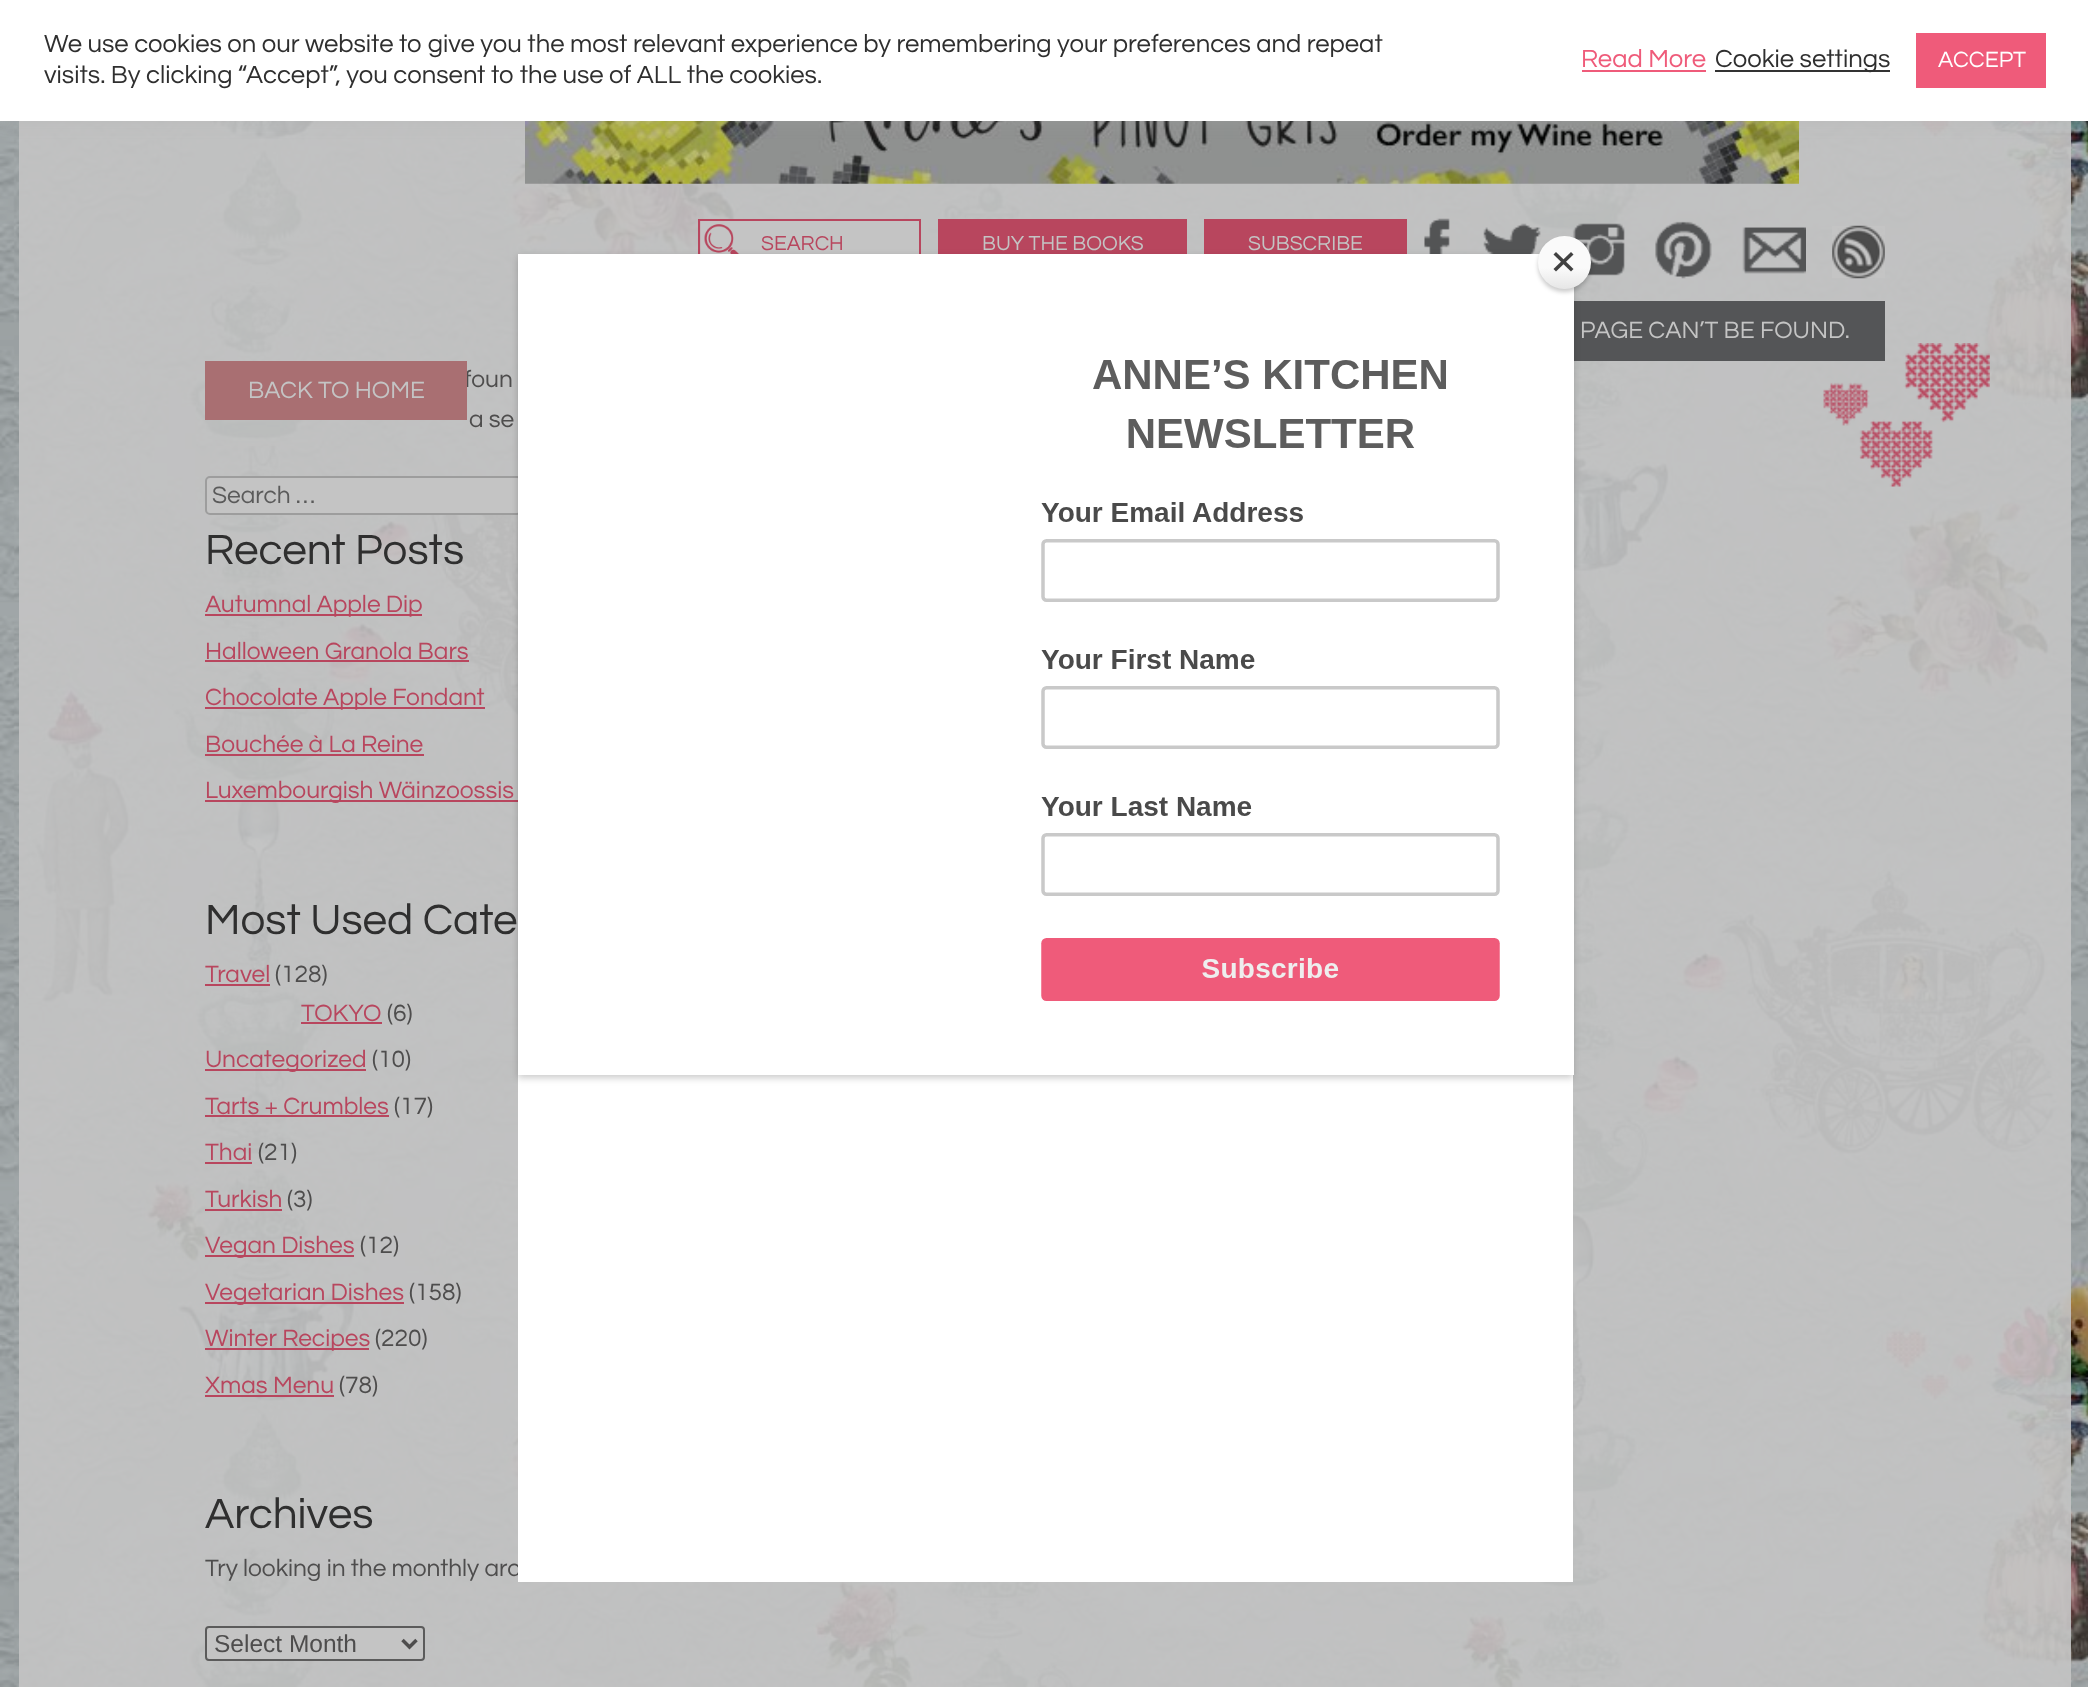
<svg xmlns="http://www.w3.org/2000/svg" width="2088" height="1687">
<defs>
<linearGradient id="g1" gradientUnits="userSpaceOnUse" x1="1565" y1="236" x2="1565" y2="289"><stop offset="0.6" stop-color="#fafafa"/><stop offset="1" stop-color="#e6e6e6"/></linearGradient>
</defs>
<rect width="100%" height="100%" fill="#fff"/>
<image x="0" y="121" width="2088" height="1566" href="media/1.png"/>
<image x="525" y="121" width="1274" height="63" href="media/3.png"/>
<rect y="-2" width="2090" height="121" fill="#acabab4d" filter="blur(9px)"/>
<rect width="2088" height="121" fill="#fff"/>
<text x="44" y="52" style="font-family:Questrial;font-size:25.67px;fill:#2f2f2f">We use cookies on our website to give you the most relevant experience by remembering your preferences and repeat</text>
<text x="44" y="83" style="font-family:Questrial;font-size:25.67px;fill:#2f2f2f">visits. By clicking “Accept”, you consent to the use of ALL the cookies.</text>
<text x="1581" y="67" style="font-family:Questrial;font-size:25.67px;fill:#ef5b7a">Read More</text>
<rect x="1582" y="70" width="124" height="2" fill="#ef5b7a"/>
<rect x="1715" y="70" width="175" height="2" fill="#333"/>
<text x="1715" y="67" style="font-family:Questrial;font-size:25.67px;fill:#2f2f2f">Cookie settings</text>
<rect x="1916" y="33" width="130" height="55" fill="#ef5b7a"/>
<text x="1938" y="67" style="font-family:Questrial;font-size:23px;fill:#fff">ACCEPT</text>
<text x="205" y="1576" style="font-family:Questrial;font-size:24.5px;fill:#4e4d4d">Try looking in the monthly arc</text>
<rect x="518" y="1075" width="1055" height="507" fill="#fff"/>
<rect x="749" y="221" width="170" height="33" fill="#c4c4c4"/>
<image x="700" y="221" width="49" height="33" href="media/4.png"/>
<rect x="699" y="220" width="221" height="50" fill="none" stroke="#b8465e" stroke-width="2"/>
<rect x="938" y="219" width="249" height="35" fill="#b8465e"/>
<rect x="1204" y="219" width="203" height="35" fill="#b8465e"/>
<image x="1424" y="218" width="382" height="61" href="media/5.png"/>
<rect x="1574" y="301" width="311" height="60" fill="#545557"/>
<rect x="206" y="477" width="315" height="37" rx="4" fill="#c4c4c4" stroke="#9d9d9d" stroke-width="2"/>
<rect x="205" y="800" width="320" height="2" fill="#b8465e"/>
<rect x="518" y="257" width="1055" height="821" fill="#00000033" filter="blur(3.5px)"/>
<image x="518" y="254" width="1056" height="821" href="media/2.png"/>
<rect x="1538" y="240" width="53" height="52" rx="26" fill="#00000033" filter="blur(2px)"/>
<circle cx="1564.5" cy="262.5" r="26.5" fill="url(#g1)"/>
<path d="M1571 252l2.5 2.5l-17.5 17l-2.5-2.5z" fill="#414141"/>
<path d="M1553.5 254.5l2.5-2.5l17.5 17l-2.5 2.5z" fill="#414141"/>
<text x="761" y="250" style="font-family:Questrial;font-size:21px;fill:#b8465e">SEARCH</text>
<text x="982" y="250" style="font-family:Questrial;font-size:21px;fill:#c4c4c4">BUY THE BOOKS</text>
<text x="1248" y="250" style="font-family:Questrial;font-size:21px;fill:#c4c4c4">SUBSCRIBE</text>
<image x="1832" y="225" width="53" height="54" href="media/6.png"/>
<text x="1580" y="338" style="font-family:Questrial;font-size:24.5px;fill:#c4c4c4">PAGE CAN’T BE FOUND.</text>
<text x="464" y="387" style="font-family:Questrial;font-size:24.5px;fill:#4e4d4d">foun</text>
<text x="469" y="427" style="font-family:Questrial;font-size:24.5px;fill:#4e4d4d">a se</text>
<text x="212" y="503" style="font-family:Questrial;font-size:24.5px;fill:#5a5a5a">Search …</text>
<text x="205" y="564" style="font-family:Questrial;font-size:44px;fill:#2f2f2f">Recent Posts</text>
<rect x="205" y="614" width="217" height="2" fill="#b8465e"/>
<text x="205" y="612" style="font-family:Questrial;font-size:24.5px;fill:#b8465e">Autumnal Apple Dip</text>
<text x="205" y="659" style="font-family:Questrial;font-size:24.5px;fill:#b8465e">Halloween Granola Bars</text>
<rect x="205" y="660" width="264" height="2" fill="#b8465e"/>
<rect x="205" y="707" width="280" height="2" fill="#b8465e"/>
<text x="205" y="705" style="font-family:Questrial;font-size:24.5px;fill:#b8465e">Chocolate Apple Fondant</text>
<text x="205" y="752" style="font-family:Questrial;font-size:24.5px;fill:#b8465e">Bouchée à La Reine</text>
<rect x="205" y="754" width="219" height="2" fill="#b8465e"/>
<text x="205" y="798" style="font-family:Questrial;font-size:24.5px;fill:#b8465e">Luxembourgish Wäinzoossis</text>
<text x="205" y="934" style="font-family:Questrial;font-size:44px;fill:#2f2f2f">Most Used Cate</text>
<text x="205" y="982" style="font-family:Questrial;font-size:24.5px;fill:#b8465e">Travel</text>
<rect x="205" y="984" width="65" height="2" fill="#b8465e"/>
<text x="275" y="982" style="font-family:Questrial;font-size:24.5px;fill:#4e4d4d">(128)</text>
<text x="301" y="1021" style="font-family:Questrial;font-size:24.5px;fill:#b8465e">TOKYO</text>
<rect x="301" y="1022" width="81" height="2" fill="#b8465e"/>
<text x="387" y="1021" style="font-family:Questrial;font-size:24.5px;fill:#4e4d4d">(6)</text>
<rect x="205" y="1069" width="161" height="2" fill="#b8465e"/>
<text x="205" y="1067" style="font-family:Questrial;font-size:24.5px;fill:#b8465e">Uncategorized</text>
<text x="372" y="1067" style="font-family:Questrial;font-size:24.5px;fill:#4e4d4d">(10)</text>
<text x="205" y="1114" style="font-family:Questrial;font-size:24.5px;fill:#b8465e">Tarts + Crumbles</text>
<rect x="205" y="1115" width="184" height="2" fill="#b8465e"/>
<text x="394" y="1114" style="font-family:Questrial;font-size:24.5px;fill:#4e4d4d">(17)</text>
<text x="205" y="1160" style="font-family:Questrial;font-size:24.5px;fill:#b8465e">Thai</text>
<rect x="205" y="1162" width="47" height="2" fill="#b8465e"/>
<text x="258" y="1160" style="font-family:Questrial;font-size:24.5px;fill:#4e4d4d">(21)</text>
<text x="205" y="1207" style="font-family:Questrial;font-size:24.5px;fill:#b8465e">Turkish</text>
<rect x="205" y="1209" width="77" height="2" fill="#b8465e"/>
<text x="287" y="1207" style="font-family:Questrial;font-size:24.5px;fill:#4e4d4d">(3)</text>
<rect x="205" y="1255" width="149" height="2" fill="#b8465e"/>
<text x="205" y="1253" style="font-family:Questrial;font-size:24.5px;fill:#b8465e">Vegan Dishes</text>
<text x="360" y="1253" style="font-family:Questrial;font-size:24.5px;fill:#4e4d4d">(12)</text>
<rect x="205" y="1302" width="199" height="2" fill="#b8465e"/>
<text x="205" y="1300" style="font-family:Questrial;font-size:24.5px;fill:#b8465e">Vegetarian Dishes</text>
<text x="409" y="1300" style="font-family:Questrial;font-size:24.5px;fill:#4e4d4d">(158)</text>
<rect x="205" y="1348" width="164" height="2" fill="#b8465e"/>
<text x="205" y="1346" style="font-family:Questrial;font-size:24.5px;fill:#b8465e">Winter Recipes</text>
<text x="375" y="1346" style="font-family:Questrial;font-size:24.5px;fill:#4e4d4d">(220)</text>
<text x="205" y="1393" style="font-family:Questrial;font-size:24.5px;fill:#b8465e">Xmas Menu</text>
<rect x="205" y="1395" width="129" height="2" fill="#b8465e"/>
<text x="339" y="1393" style="font-family:Questrial;font-size:24.5px;fill:#4e4d4d">(78)</text>
<text x="205" y="1528" style="font-family:Questrial;font-size:44px;fill:#2f2f2f">Archives</text>
<rect x="206" y="1627" width="218" height="33" rx="3" fill="#c4c4c4" stroke="#5b5b5b" stroke-width="2"/>
<path d="M402.5 1640l7 7l7-7" fill="none" stroke="#4e4d4d" stroke-width="3.5"/>
<text x="214" y="1652" style="font-family:Liberation Sans;font-size:24.5px;fill:#4e4d4d">Select Month</text>
<image x="1823" y="343" width="167" height="144" href="media/7.png"/>
<rect x="205" y="361" width="262" height="59" fill="#a96f72"/>
<text x="248" y="398" style="font-family:Questrial;font-size:24.5px;fill:#c4c4c4">BACK TO HOME</text>
</svg>
